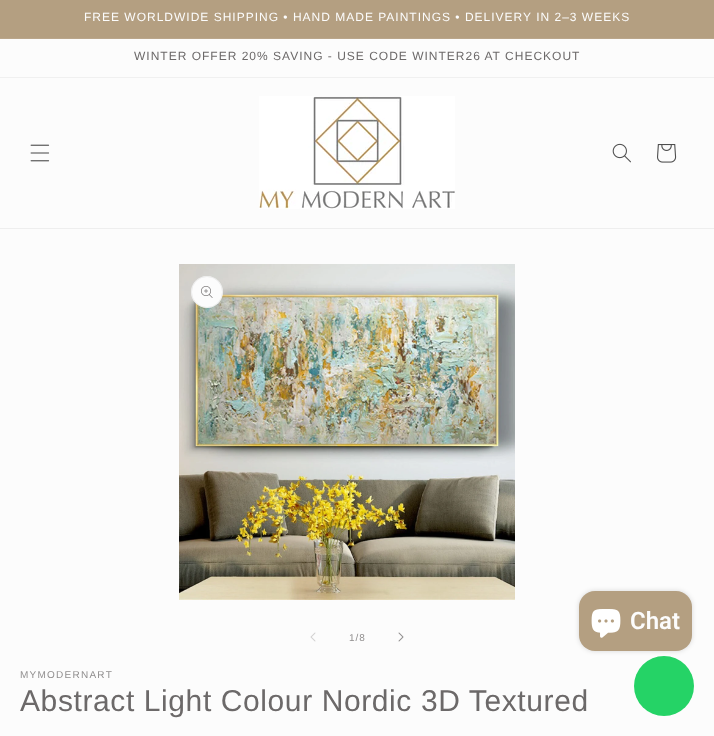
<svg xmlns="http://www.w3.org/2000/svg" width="714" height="736">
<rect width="100%" height="100%" fill="#fcfcfc"/>
<rect width="714" height="38" fill="#b49f81"/>
<rect y="38" width="714" height="1" fill="#baa68b"/>
<text x="84" y="21" style="font-family:Liberation Sans;font-size:12px;letter-spacing:1px;fill:#fcfcfc">FREE WORLDWIDE SHIPPING • HAND MADE PAINTINGS • DELIVERY IN 2–3 WEEKS</text>
<rect y="77" width="714" height="1" fill="#f0f0f0"/>
<text x="134" y="60" style="font-family:Liberation Sans;font-size:12px;letter-spacing:1px;fill:#6c6969">WINTER OFFER 20% SAVING - USE CODE WINTER26 AT CHECKOUT</text>
<rect y="228" width="714" height="1" fill="#eee"/>
<image x="30" y="144" width="20" height="18" href="media/1.png"/>
<image x="259" y="96" width="196" height="113" href="media/2.png"/>
<image x="612" y="143" width="19" height="20" href="media/3.png"/>
<image x="657" y="144" width="20" height="19" href="media/4.png"/>
<rect x="579" y="591" width="113" height="60" rx="16" fill="#00000026" filter="blur(2.5px)"/>
<rect x="579" y="591" width="113" height="60" rx="16" fill="#b49f81"/>
<image x="591" y="609" width="30" height="29" href="media/5.png"/>
<text x="630" y="629" style="font-family:Roboto;font-size:24px;font-weight:600;fill:#fcfcfc">Chat</text>
<image x="179" y="264" width="336" height="336" href="media/6.png"/>
<circle cx="207" cy="292" r="16" fill="#fcfcfc"/>
<circle cx="207" cy="292" r="15.5" fill="none" stroke="#6c69691a"/>
<image x="201" y="286" width="12" height="12" href="media/7.png"/>
<image x="310" y="632" width="6" height="10" href="media/8.png"/>
<text x="349" y="641" style="font-family:Liberation Sans;font-size:10px;letter-spacing:1px;fill:#908e8e">1/8</text>
<image x="398" y="632" width="6" height="10" href="media/9.png"/>
<text x="20" y="678" style="font-family:Liberation Sans;font-size:10px;letter-spacing:1.25px;fill:#908e8e">MYMODERNART</text>
<text x="20" y="711" style="font-family:Liberation Sans;font-size:30px;letter-spacing:0.6px;fill:#6c6969">Abstract Light Colour Nordic 3D Textured</text>
<circle cx="664" cy="686" r="30" fill="#25d366"/>
</svg>
